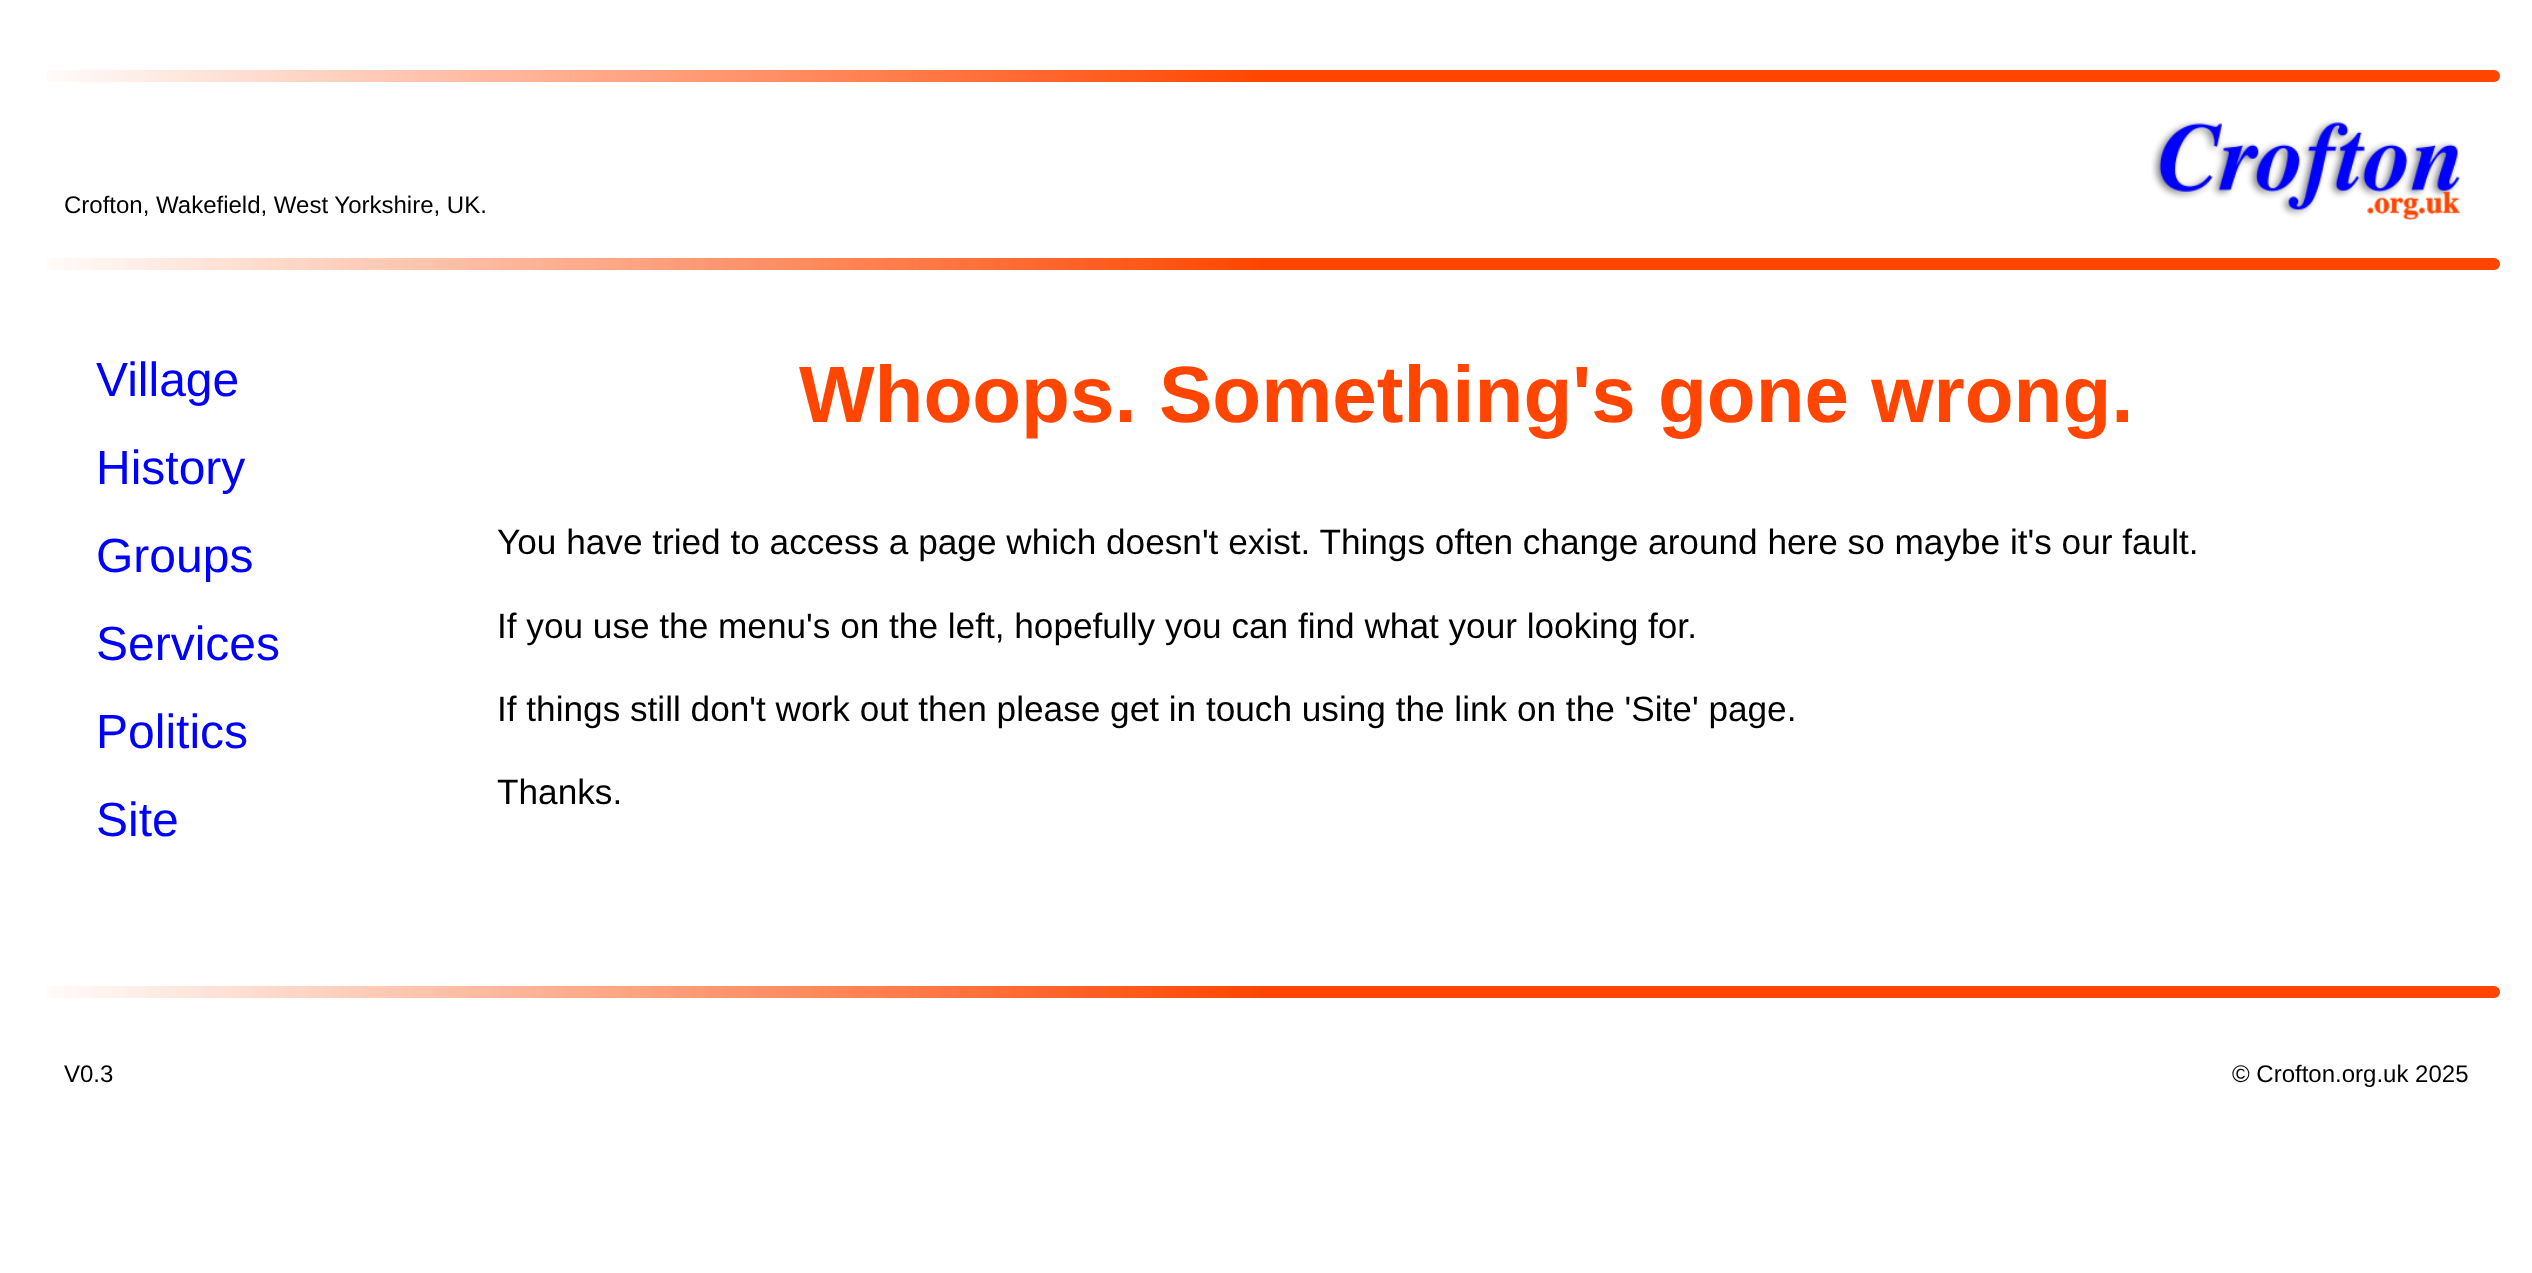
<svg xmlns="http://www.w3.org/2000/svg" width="2532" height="1273">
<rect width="100%" height="100%" fill="#fff"/>
<image x="47" y="70" width="2453" height="12" href="media/1.png"/>
<text x="64" y="213" style="font-family:Liberation Sans;font-size:24px;fill:#000">Crofton, Wakefield, West Yorkshire, UK.</text>
<image x="2151" y="119" width="309" height="101" href="media/2.png"/>
<image x="47" y="258" width="2453" height="12" href="media/1.png"/>
<text x="96" y="396" style="font-family:Liberation Sans;font-size:48px;fill:#00f">Village</text>
<text x="96" y="484" style="font-family:Liberation Sans;font-size:48px;fill:#00f">History</text>
<text x="96" y="572" style="font-family:Liberation Sans;font-size:48px;fill:#00f">Groups</text>
<text x="96" y="660" style="font-family:Liberation Sans;font-size:48px;fill:#00f">Services</text>
<text x="96" y="748" style="font-family:Liberation Sans;font-size:48px;fill:#00f">Politics</text>
<text x="96" y="836" style="font-family:Liberation Sans;font-size:48px;fill:#00f">Site</text>
<text x="799" y="422" style="font-family:Liberation Sans;font-size:80px;font-weight:bold;fill:#ff4500">Whoops. Something's gone wrong.</text>
<text x="497" y="554" style="font-family:Liberation Sans;font-size:35.2px;fill:#000">You have tried to access a page which doesn't exist. Things often change around here so maybe it's our fault.</text>
<text x="497" y="638" style="font-family:Liberation Sans;font-size:35.2px;fill:#000">If you use the menu's on the left, hopefully you can find what your looking for.</text>
<text x="497" y="721" style="font-family:Liberation Sans;font-size:35.2px;fill:#000">If things still don't work out then please get in touch using the link on the 'Site' page.</text>
<text x="497" y="804" style="font-family:Liberation Sans;font-size:35.2px;fill:#000">Thanks.</text>
<image x="47" y="986" width="2453" height="12" href="media/1.png"/>
<text x="64" y="1082" style="font-family:Liberation Sans;font-size:24px;fill:#000">V0.3</text>
<text x="2232" y="1082" style="font-family:Liberation Sans;font-size:24px;fill:#000">© Crofton.org.uk 2025</text>
</svg>
